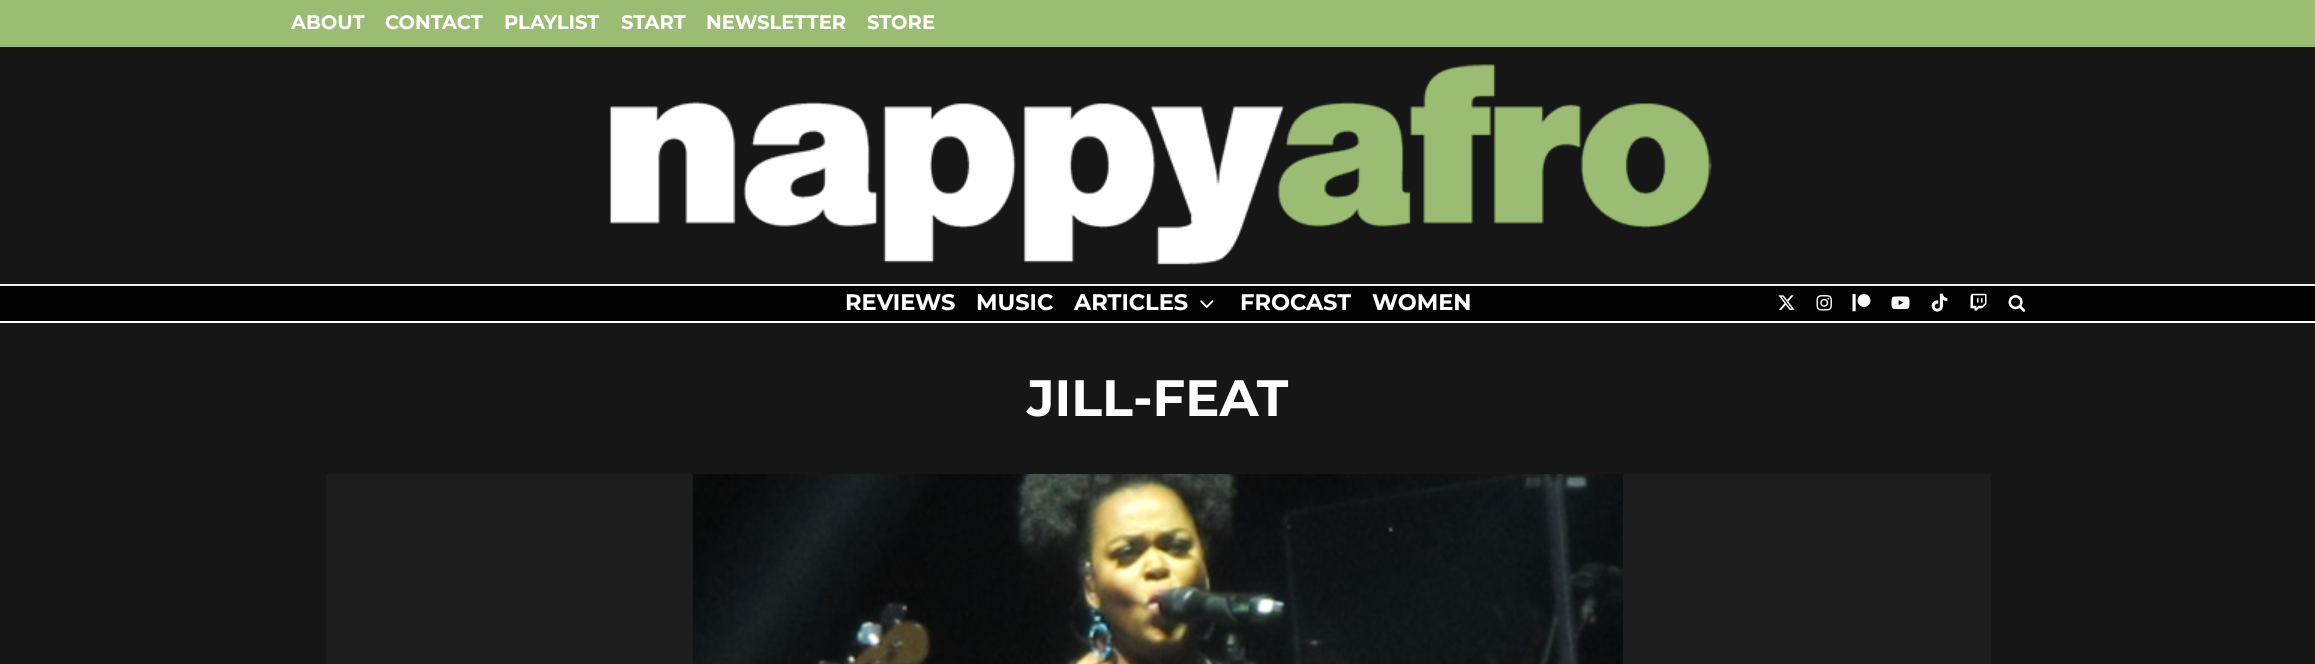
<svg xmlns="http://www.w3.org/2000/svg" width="2315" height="664">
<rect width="100%" height="100%" fill="#161616"/>
<rect width="2315" height="47" fill="#9bbd73"/>
<text x="291" y="29" style="font-family:Montserrat;font-size:19.5px;font-weight:bold;fill:#fff">ABOUT</text>
<text x="385" y="29" style="font-family:Montserrat;font-size:19.5px;font-weight:bold;fill:#fff">CONTACT</text>
<text x="504" y="29" style="font-family:Montserrat;font-size:19.5px;font-weight:bold;fill:#fff">PLAYLIST</text>
<text x="621" y="29" style="font-family:Montserrat;font-size:19.5px;font-weight:bold;fill:#fff">START</text>
<text x="706" y="29" style="font-family:Montserrat;font-size:19.5px;font-weight:bold;fill:#fff">NEWSLETTER</text>
<text x="867" y="29" style="font-family:Montserrat;font-size:19.5px;font-weight:bold;fill:#fff">STORE</text>
<image x="610" y="64" width="1102" height="201" href="media/1.png"/>
<rect y="286" width="2315" height="35" fill="#010101"/>
<rect y="284" width="2315" height="2" fill="#eee"/>
<rect y="321" width="2315" height="2" fill="#fff"/>
<text x="845" y="310" style="font-family:Montserrat;font-size:22.5px;font-weight:bold;fill:#fff">REVIEWS</text>
<text x="976" y="310" style="font-family:Montserrat;font-size:22.5px;font-weight:bold;fill:#fff">MUSIC</text>
<text x="1074" y="310" style="font-family:Montserrat;font-size:22.5px;font-weight:bold;fill:#fff">ARTICLES</text>
<image x="1200" y="300" width="14" height="8" href="media/2.png"/>
<text x="1240" y="310" style="font-family:Montserrat;font-size:22.5px;font-weight:bold;fill:#fff">FROCAST</text>
<text x="1372" y="310" style="font-family:Montserrat;font-size:22.5px;font-weight:bold;fill:#fff">WOMEN</text>
<image x="1778" y="295" width="17" height="15" href="media/3.png"/>
<image x="1816" y="295" width="16" height="16" href="media/4.png"/>
<image x="1852" y="294" width="19" height="18" href="media/5.png"/>
<image x="1891" y="296" width="19" height="14" href="media/6.png"/>
<image x="1931" y="293" width="17" height="19" href="media/7.png"/>
<image x="1970" y="293" width="17" height="18" href="media/8.png"/>
<image x="2008" y="295" width="18" height="17" href="media/9.png"/>
<text x="1027" y="416" style="font-family:Montserrat;font-size:51px;font-weight:bold;fill:#fff">JILL-FEAT</text>
<rect x="326" y="474" width="1665" height="190" fill="#1d1d1d"/>
<image x="693" y="474" width="930" height="190" href="media/10.png"/>
</svg>
